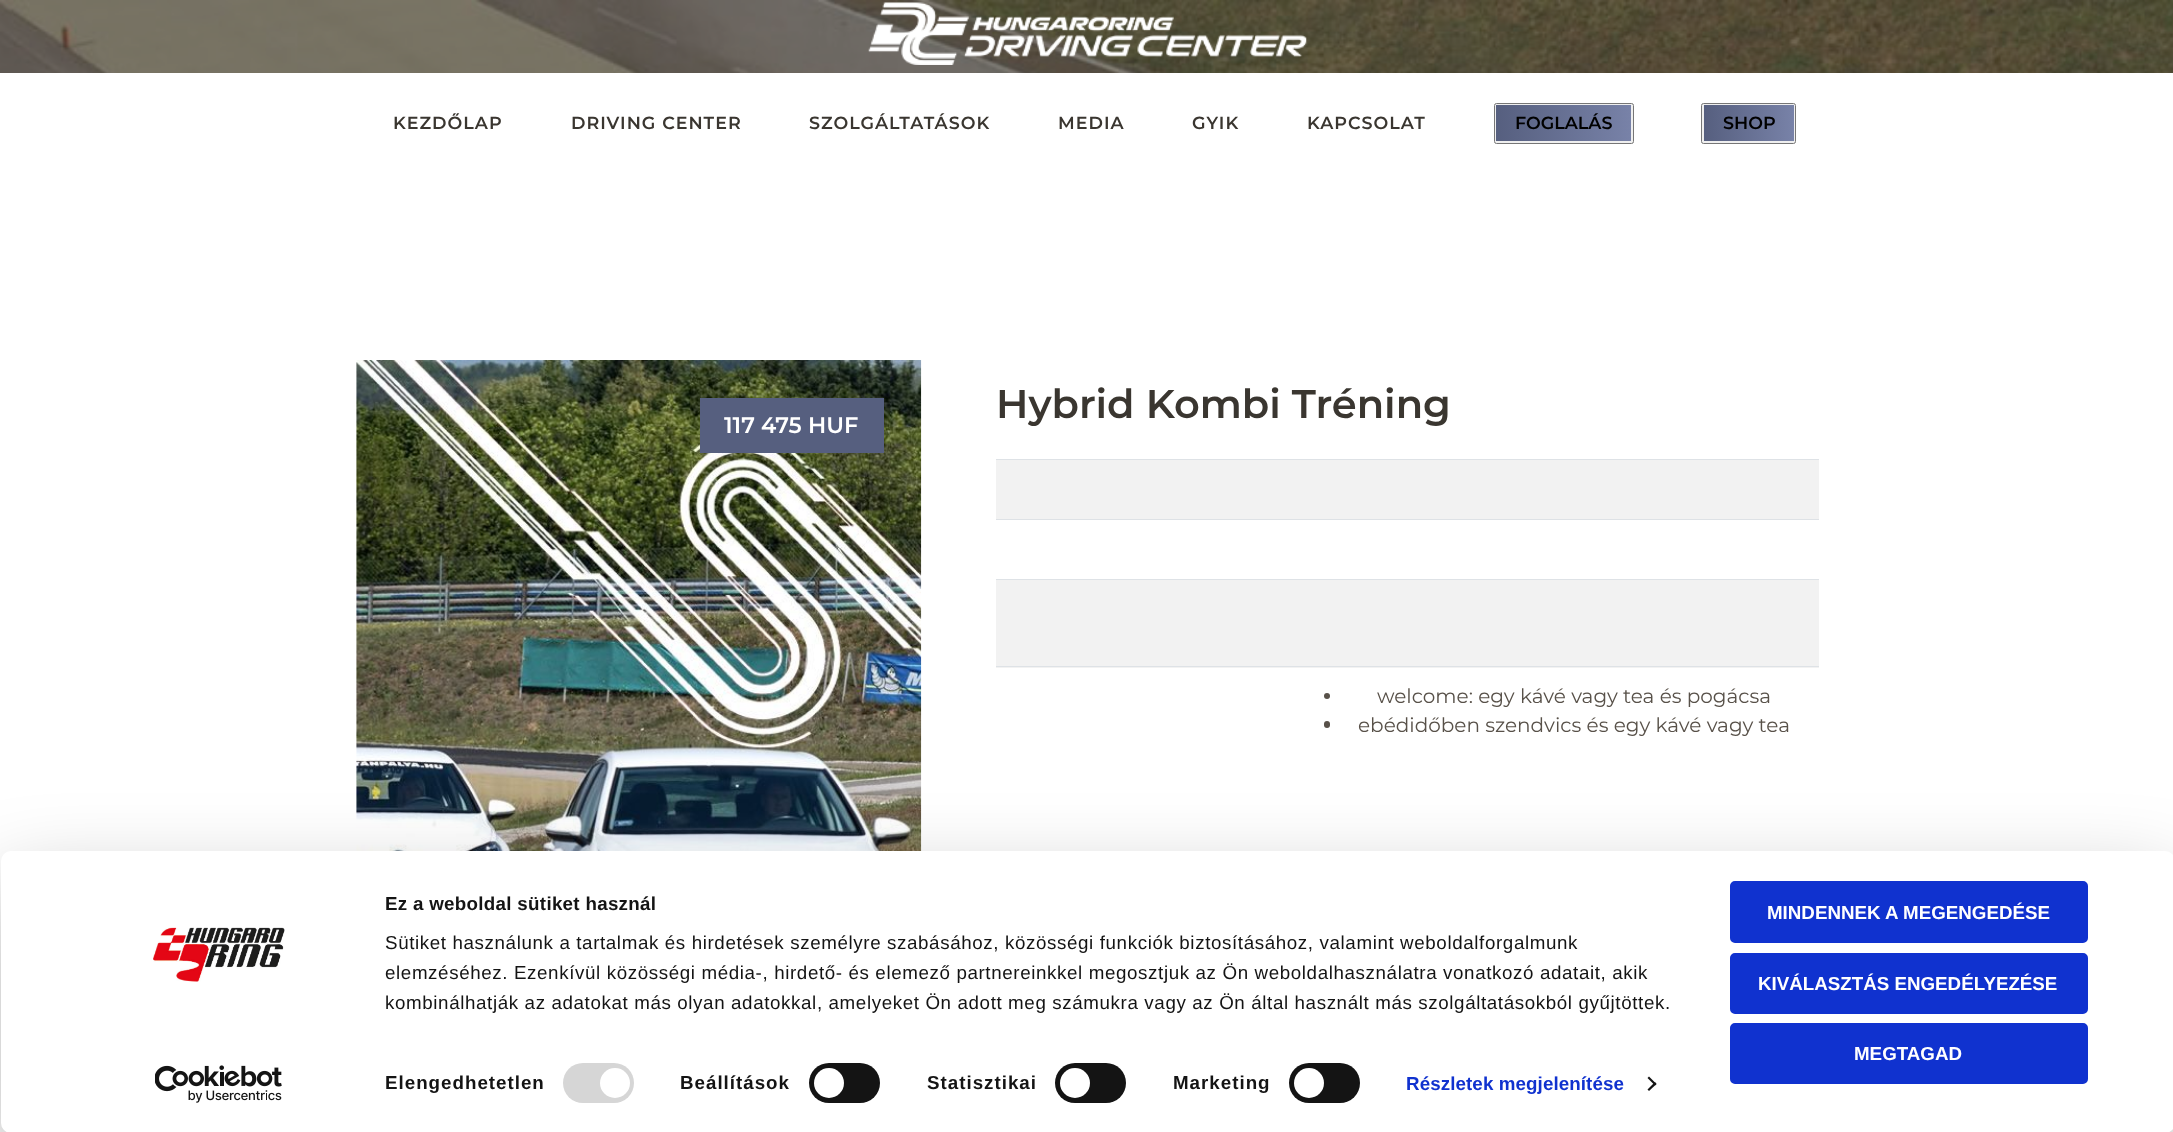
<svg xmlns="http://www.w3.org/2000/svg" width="2173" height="1132">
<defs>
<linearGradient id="g1" gradientUnits="userSpaceOnUse" x1="1496" y1="123" x2="1631" y2="123"><stop offset="0" stop-color="#565f7f"/><stop offset="1" stop-color="#7882a8"/></linearGradient>
<linearGradient id="g2" gradientUnits="userSpaceOnUse" x1="1704" y1="123" x2="1794" y2="123"><stop offset="0" stop-color="#565f7f"/><stop offset="1" stop-color="#7882a8"/></linearGradient>
</defs>
<rect width="100%" height="100%" fill="#fff"/>
<image x="0" y="0" width="2173" height="73" href="media/1.png"/>
<image x="868" y="2" width="439" height="63" href="media/2.png"/>
<text x="393" y="129" style="font-family:Montserrat;font-size:17.5px;font-weight:600;letter-spacing:1px;fill:#3a3630">KEZDŐLAP</text>
<text x="571" y="129" style="font-family:Montserrat;font-size:17.5px;font-weight:600;letter-spacing:1px;fill:#3a3630">DRIVING CENTER</text>
<text x="809" y="129" style="font-family:Montserrat;font-size:17.5px;font-weight:600;letter-spacing:1px;fill:#3a3630">SZOLGÁLTATÁSOK</text>
<text x="1058" y="129" style="font-family:Montserrat;font-size:17.5px;font-weight:600;letter-spacing:1px;fill:#3a3630">MEDIA</text>
<text x="1192" y="129" style="font-family:Montserrat;font-size:17.5px;font-weight:600;letter-spacing:1px;fill:#3a3630">GYIK</text>
<text x="1307" y="129" style="font-family:Montserrat;font-size:17.5px;font-weight:600;letter-spacing:1px;fill:#3a3630">KAPCSOLAT</text>
<rect x="1494.5" y="103.5" width="139" height="40" rx="2" fill="#efefef" stroke="#767676"/>
<rect x="1496" y="105" width="135" height="36" fill="url(#g1)"/>
<text x="1515" y="129" style="font-family:Montserrat;font-size:17.5px;font-weight:600;fill:#000">FOGLALÁS</text>
<rect x="1701.5" y="103.5" width="94" height="40" rx="2" fill="#efefef" stroke="#767676"/>
<rect x="1704" y="105" width="90" height="36" fill="url(#g2)"/>
<text x="1723" y="129" style="font-family:Montserrat;font-size:17.5px;font-weight:600;fill:#000">SHOP</text>
<image x="356" y="360" width="566" height="491" href="media/3.png"/>
<rect x="700" y="398" width="184" height="55" fill="#565f7f"/>
<text x="724" y="433" style="font-family:Montserrat;font-size:22.5px;font-weight:600;fill:#fff">117 475 HUF</text>
<text x="996" y="418" style="font-family:Montserrat;font-size:40px;font-weight:600;fill:#3a3630">Hybrid Kombi Tréning</text>
<rect x="996" y="460" width="823" height="59" fill="#f2f2f2"/>
<rect x="996" y="459" width="823" height="1" fill="#dee2e6"/>
<rect x="996" y="519" width="823" height="1" fill="#dee2e6"/>
<rect x="996" y="580" width="823" height="88" fill="#f2f2f2"/>
<rect x="996" y="579" width="823" height="1" fill="#dee2e6"/>
<rect x="996" y="666" width="823" height="1" fill="#dee2e6"/>
<circle cx="1327" cy="696" r="3" fill="#585149"/>
<text x="1377" y="703" style="font-family:Montserrat;font-size:20px;fill:#585149">welcome: egy kávé vagy tea és pogácsa</text>
<rect x="1324" y="721" width="6" height="7" rx="3" fill="#585149"/>
<text x="1358" y="732" style="font-family:Montserrat;font-size:20px;fill:#585149">ebédidőben szendvics és egy kávé vagy tea</text>
<rect x="1" y="889" width="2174" height="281" rx="10" fill="#0000004d" filter="blur(44px)"/>
<rect x="1" y="851" width="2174" height="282" rx="10" fill="#fff"/>
<image x="153" y="927" width="132" height="55" href="media/4.png"/>
<image x="155" y="1065" width="127" height="38" href="media/5.png"/>
<text x="385" y="910" style="font-family:Liberation Sans;font-size:18.75px;font-weight:bold;letter-spacing:0.3px;fill:#141414">Ez a weboldal sütiket használ</text>
<text x="385" y="949" style="font-family:Liberation Sans;font-size:18.75px;letter-spacing:0.62px;fill:#141414">Sütiket használunk a tartalmak és hirdetések személyre szabásához, közösségi funkciók biztosításához, valamint weboldalforgalmunk</text>
<text x="385" y="979" style="font-family:Liberation Sans;font-size:18.75px;letter-spacing:0.62px;fill:#141414">elemzéséhez. Ezenkívül közösségi média-, hirdető- és elemező partnereinkkel megosztjuk az Ön weboldalhasználatra vonatkozó adatait, akik</text>
<text x="385" y="1009" style="font-family:Liberation Sans;font-size:18.75px;letter-spacing:0.62px;fill:#141414">kombinálhatják az adatokat más olyan adatokkal, amelyeket Ön adott meg számukra vagy az Ön által használt más szolgáltatásokból gyűjtöttek.</text>
<text x="385" y="1089" style="font-family:Liberation Sans;font-size:18.75px;font-weight:bold;letter-spacing:1px;fill:#141414">Elengedhetetlen</text>
<rect x="563" y="1063" width="71" height="40" rx="20" fill="#d6d6d6"/>
<circle cx="615" cy="1083" r="15" fill="#fff"/>
<text x="680" y="1089" style="font-family:Liberation Sans;font-size:18.75px;font-weight:bold;letter-spacing:1px;fill:#141414">Beállítások</text>
<rect x="809" y="1063" width="71" height="40" rx="20" fill="#141414"/>
<circle cx="829" cy="1083" r="15" fill="#fff"/>
<text x="927" y="1089" style="font-family:Liberation Sans;font-size:18.75px;font-weight:bold;letter-spacing:1px;fill:#141414">Statisztikai</text>
<rect x="1055" y="1063" width="71" height="40" rx="20" fill="#141414"/>
<circle cx="1075" cy="1083" r="15" fill="#fff"/>
<text x="1173" y="1089" style="font-family:Liberation Sans;font-size:18.75px;font-weight:bold;letter-spacing:1px;fill:#141414">Marketing</text>
<rect x="1289" y="1063" width="71" height="40" rx="20" fill="#141414"/>
<circle cx="1309" cy="1083" r="15" fill="#fff"/>
<text x="1406" y="1090" style="font-family:Liberation Sans;font-size:18.75px;font-weight:bold;letter-spacing:0.1px;fill:#1032cf">Részletek megjelenítése</text>
<path d="M1649 1076.5l7.5 7.5l-1.5 1.5l-7.5-7.5z" fill="#141414"/>
<path d="M1655 1082l1.5 2l-7.5 7l-1.5-1.5z" fill="#141414"/>
<rect x="1731.5" y="882.5" width="355" height="59" rx="3.5" fill="#1032cf" stroke="#1032cf" stroke-width="3"/>
<text x="1767" y="919" style="font-family:Liberation Sans;font-size:18.75px;font-weight:bold;fill:#fff">MINDENNEK A MEGENGEDÉSE</text>
<rect x="1731.5" y="954.5" width="355" height="58" rx="3.5" fill="#1032cf" stroke="#1032cf" stroke-width="3"/>
<text x="1758" y="990" style="font-family:Liberation Sans;font-size:18.75px;font-weight:bold;fill:#fff">KIVÁLASZTÁS ENGEDÉLYEZÉSE</text>
<rect x="1731.5" y="1024.5" width="355" height="58" rx="3.5" fill="#1032cf" stroke="#1032cf" stroke-width="3"/>
<text x="1854" y="1060" style="font-family:Liberation Sans;font-size:18.75px;font-weight:bold;fill:#fff">MEGTAGAD</text>
</svg>
